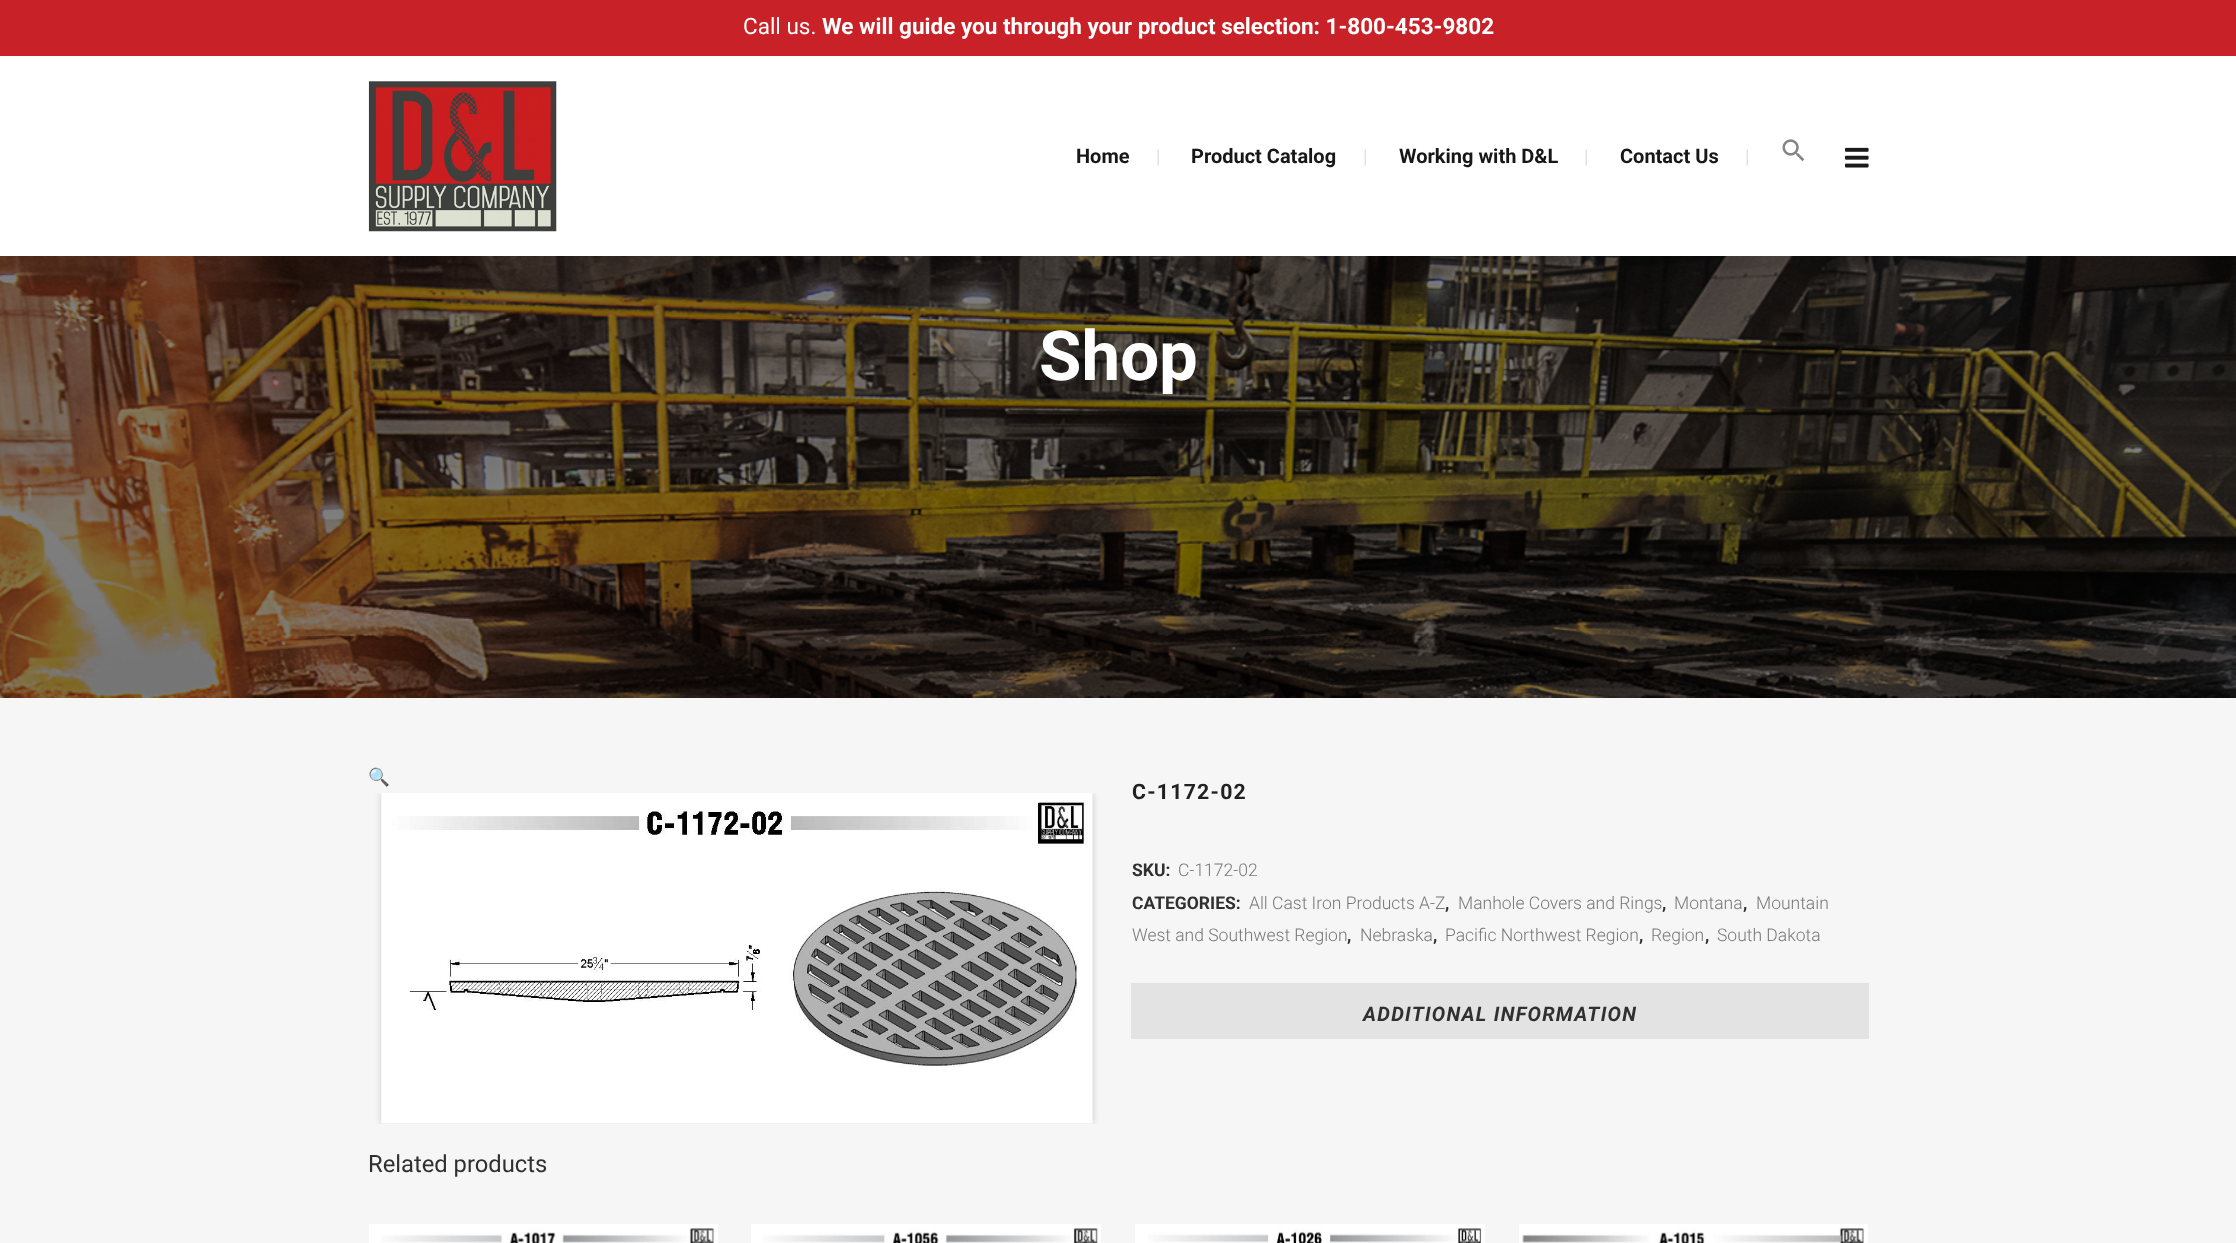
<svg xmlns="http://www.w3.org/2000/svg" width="2236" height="1243">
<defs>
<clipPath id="clip1"><rect x="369" y="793" width="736" height="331"/></clipPath>
</defs>
<rect width="100%" height="100%" fill="#f6f6f6"/>
<rect width="2236" height="56" fill="#c92128"/>
<text x="743" y="34" style="font-family:Roboto;font-size:22.5px;fill:#fff">Call us.</text>
<text x="822" y="34" style="font-family:Roboto;font-size:22.5px;font-weight:bold;fill:#fff">We will guide you through your product selection: 1-800-453-9802</text>
<rect y="56" width="2236" height="200" fill="#fff"/>
<image x="368" y="81" width="189" height="151" href="media/1.png"/>
<text x="1076" y="163" style="font-family:Roboto;font-size:20px;font-weight:bold;fill:#171717">Home</text>
<text x="1156" y="163" style="font-family:Roboto;font-size:19px;fill:#e1e1e1">|</text>
<text x="1191" y="163" style="font-family:Roboto;font-size:20px;font-weight:bold;fill:#171717">Product Catalog</text>
<text x="1363" y="163" style="font-family:Roboto;font-size:19px;fill:#e1e1e1">|</text>
<text x="1399" y="163" style="font-family:Roboto;font-size:20px;font-weight:bold;fill:#171717">Working with D&amp;L</text>
<text x="1584" y="163" style="font-family:Roboto;font-size:19px;fill:#e1e1e1">|</text>
<text x="1620" y="163" style="font-family:Roboto;font-size:20px;font-weight:bold;fill:#171717">Contact Us</text>
<text x="1745" y="163" style="font-family:Roboto;font-size:19px;fill:#e1e1e1">|</text>
<image x="1782" y="139" width="23" height="23" href="media/2.png"/>
<image x="1845" y="147" width="24" height="21" href="media/3.png"/>
<image x="0" y="256" width="2236" height="442" href="media/4.png"/>
<text x="1039" y="380" style="font-family:Roboto;font-size:69px;font-weight:bold;fill:#fff">Shop</text>
<text x="368" y="783" style="font-family:Noto Color Emoji;font-size:17.5px;fill:#c91218">🔍</text>
<g clip-path="url(#clip1)">
<rect x="381" y="793" width="712" height="331" fill="#ccc" filter="blur(3px)"/>
</g>
<image x="381" y="793" width="712" height="331" href="media/5.png"/>
<text x="1132" y="799" style="font-family:Roboto;font-size:21.25px;font-weight:bold;letter-spacing:1.25px;fill:#212121">C-1172-02</text>
<text x="1132" y="876" style="font-family:Roboto;font-size:17.5px;font-weight:bold;fill:#303030">SKU:</text>
<text x="1178" y="876" style="font-family:Roboto;font-size:17.5px;font-weight:300;fill:#787879">C-1172-02</text>
<text x="1132" y="909" style="font-family:Roboto;font-size:17.5px;font-weight:bold;fill:#303030">CATEGORIES:</text>
<text x="1249" y="909" style="font-family:Roboto;font-size:17.5px;font-weight:300;fill:#787879">All Cast Iron Products A-Z</text>
<text x="1445" y="909" style="font-family:Roboto;font-size:17.5px;font-weight:bold;fill:#303030">,</text>
<text x="1458" y="909" style="font-family:Roboto;font-size:17.5px;font-weight:300;fill:#787879">Manhole Covers and Rings</text>
<text x="1662" y="909" style="font-family:Roboto;font-size:17.5px;font-weight:bold;fill:#303030">,</text>
<text x="1674" y="909" style="font-family:Roboto;font-size:17.5px;font-weight:300;fill:#787879">Montana</text>
<text x="1743" y="909" style="font-family:Roboto;font-size:17.5px;font-weight:bold;fill:#303030">,</text>
<text x="1756" y="909" style="font-family:Roboto;font-size:17.5px;font-weight:300;fill:#787879">Mountain</text>
<text x="1132" y="941" style="font-family:Roboto;font-size:17.5px;font-weight:300;fill:#787879">West and Southwest Region</text>
<text x="1347" y="941" style="font-family:Roboto;font-size:17.5px;font-weight:bold;fill:#303030">,</text>
<text x="1360" y="941" style="font-family:Roboto;font-size:17.5px;font-weight:300;fill:#787879">Nebraska</text>
<text x="1433" y="941" style="font-family:Roboto;font-size:17.5px;font-weight:bold;fill:#303030">,</text>
<text x="1445" y="941" style="font-family:Roboto;font-size:17.5px;font-weight:300;fill:#787879">Pacific Northwest Region</text>
<text x="1639" y="941" style="font-family:Roboto;font-size:17.5px;font-weight:bold;fill:#303030">,</text>
<text x="1651" y="941" style="font-family:Roboto;font-size:17.5px;font-weight:300;fill:#787879">Region</text>
<text x="1705" y="941" style="font-family:Roboto;font-size:17.5px;font-weight:bold;fill:#303030">,</text>
<text x="1717" y="941" style="font-family:Roboto;font-size:17.5px;font-weight:300;fill:#787879">South Dakota</text>
<rect x="1131" y="983" width="738" height="56" fill="#e3e3e3"/>
<text x="1363" y="1021" style="font-family:Roboto;font-size:20px;font-weight:bold;font-style:italic;letter-spacing:1.25px;fill:#303030">ADDITIONAL INFORMATION</text>
<text x="368" y="1172" style="font-family:Roboto;font-size:23.75px;fill:#303030">Related products</text>
<rect x="369" y="1224" width="349" height="19" fill="#fff"/>
<image x="381" y="1228" width="334" height="15" href="media/6.png"/>
<rect x="751" y="1224" width="350" height="19" fill="#fff"/>
<image x="763" y="1228" width="336" height="15" href="media/7.png"/>
<rect x="1135" y="1224" width="350" height="19" fill="#fff"/>
<image x="1148" y="1228" width="335" height="15" href="media/8.png"/>
<rect x="1519" y="1224" width="349" height="19" fill="#fff"/>
<image x="1522" y="1228" width="343" height="15" href="media/9.png"/>
</svg>
